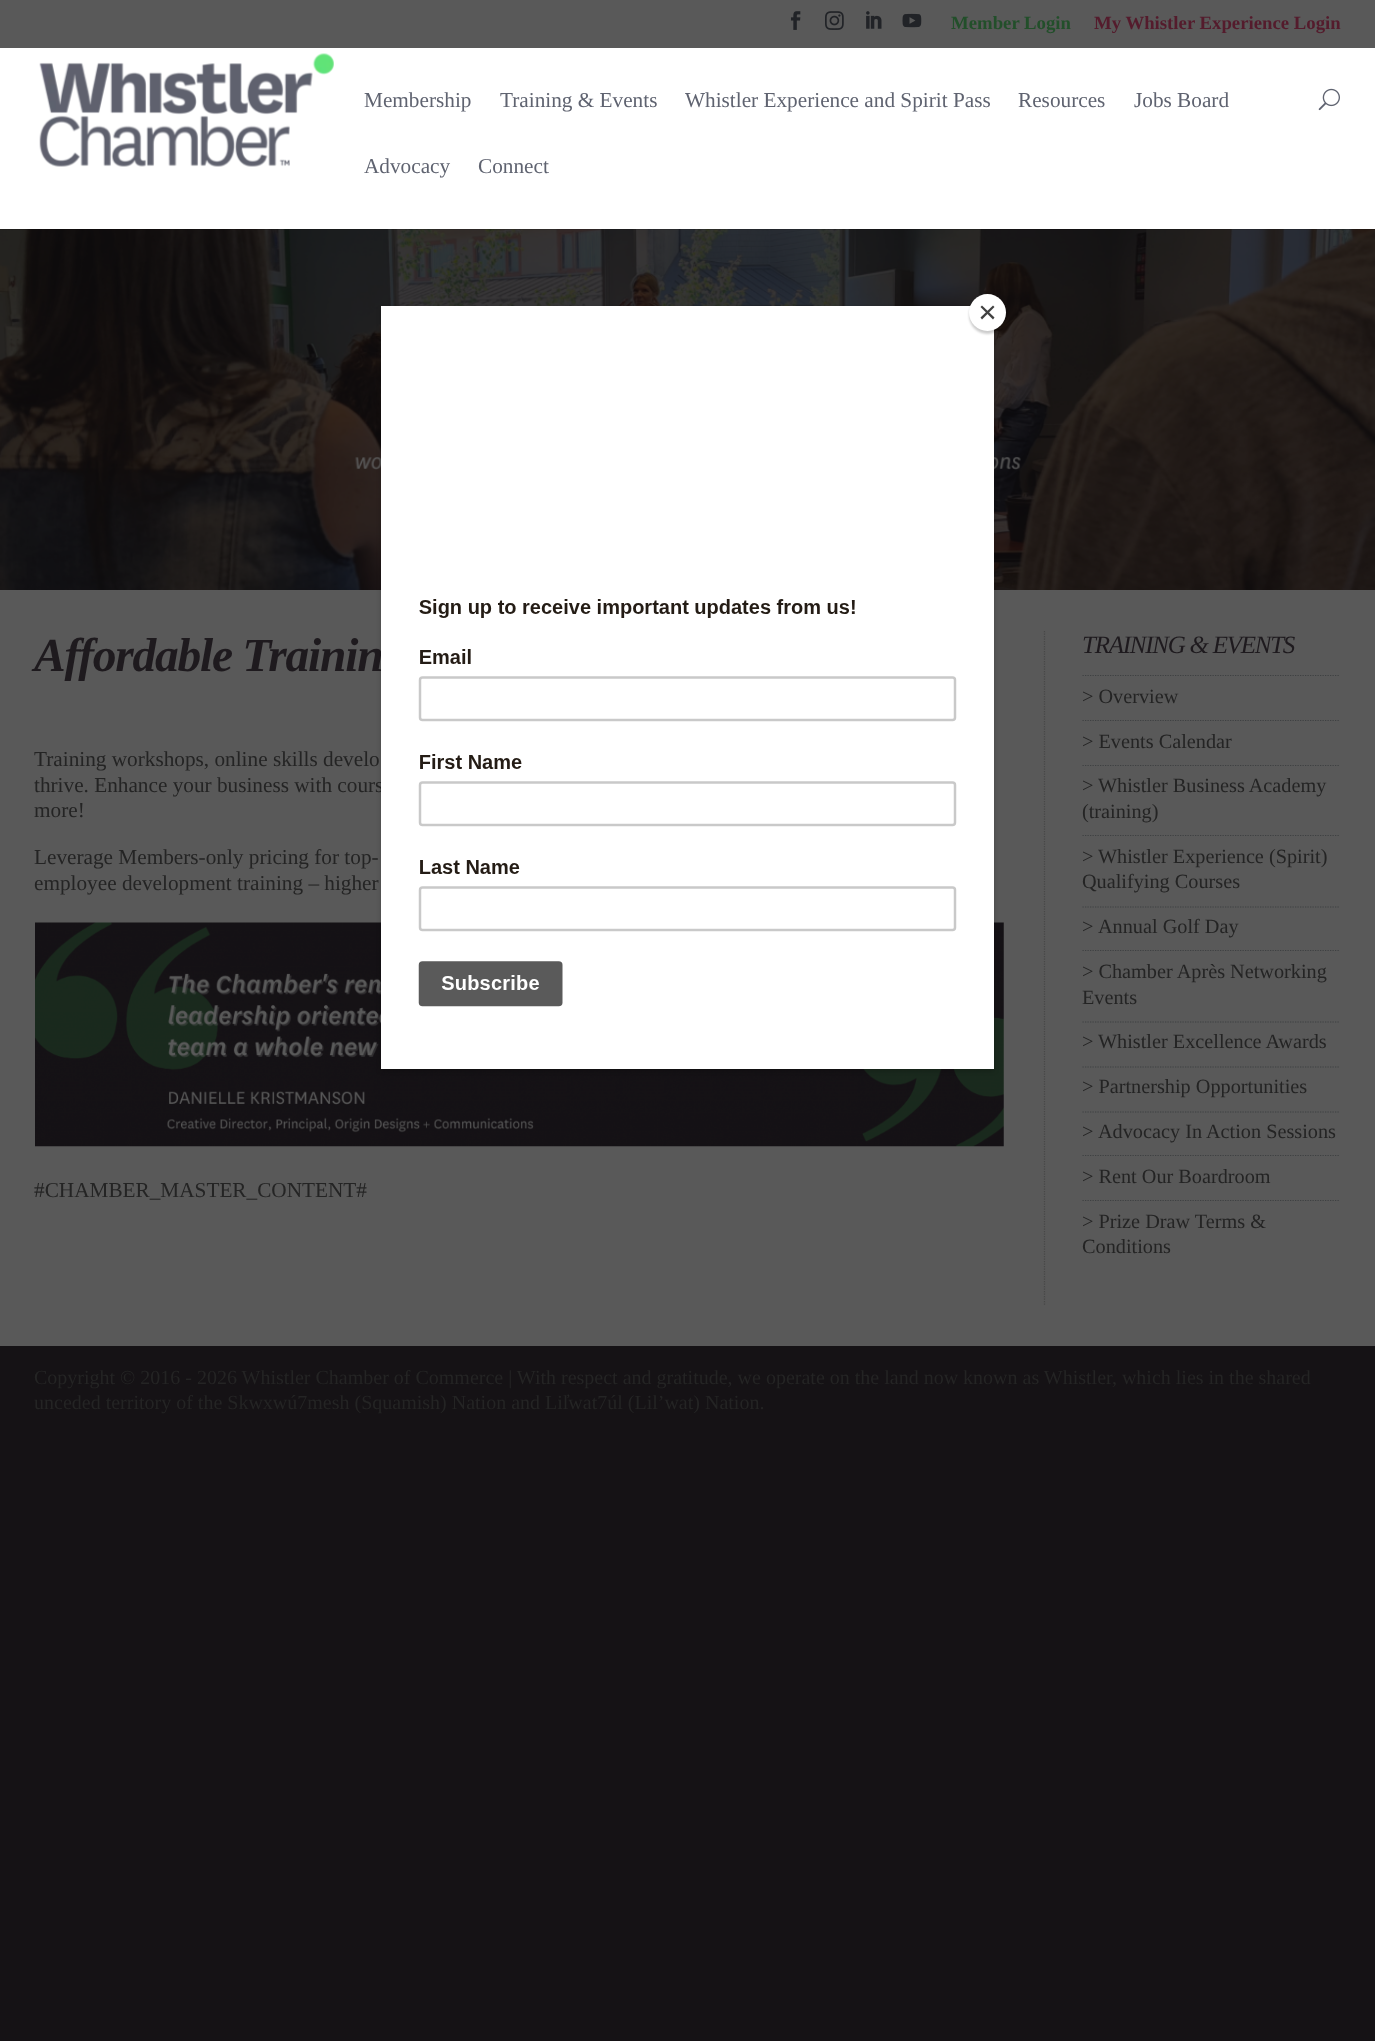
<svg xmlns="http://www.w3.org/2000/svg" width="1375" height="2041">
<rect width="100%" height="100%" fill="#151215"/>
<rect width="1375" height="48" fill="#595959"/>
<image x="790" y="11" width="11" height="19" href="media/1.png"/>
<image x="825" y="11" width="19" height="19" href="media/2.png"/>
<image x="866" y="11" width="16" height="18" href="media/3.png"/>
<image x="902" y="13" width="20" height="15" href="media/4.png"/>
<text x="951" y="29" style="font-family:Liberation Serif;font-size:18.75px;font-weight:bold;fill:#224f2a">Member Login</text>
<text x="1094" y="29" style="font-family:Liberation Serif;font-size:18.75px;font-weight:bold;fill:#541b2c">My Whistler Experience Login</text>
<image x="0" y="229" width="1375" height="361" href="media/7.png"/>
<rect y="229" width="1375" height="1" fill="#0000001a"/>
<rect y="48" width="1375" height="181" fill="#fff"/>
<image x="39" y="53" width="295" height="114" href="media/5.png"/>
<text x="364" y="107" style="font-family:Liberation Serif;font-size:21.25px;fill:#5f6370">Membership</text>
<text x="500" y="107" style="font-family:Liberation Serif;font-size:21.25px;fill:#5f6370">Training &amp; Events</text>
<text x="685" y="107" style="font-family:Liberation Serif;font-size:21.25px;fill:#5f6370">Whistler Experience and Spirit Pass</text>
<text x="1018" y="107" style="font-family:Liberation Serif;font-size:21.25px;fill:#5f6370">Resources</text>
<text x="1134" y="107" style="font-family:Liberation Serif;font-size:21.25px;fill:#5f6370">Jobs Board</text>
<text x="364" y="173" style="font-family:Liberation Serif;font-size:21.25px;fill:#5f6370">Advocacy</text>
<text x="478" y="173" style="font-family:Liberation Serif;font-size:21.25px;fill:#5f6370">Connect</text>
<image x="1318" y="88" width="22" height="23" href="media/6.png"/>
<rect y="590" width="1375" height="756" fill="#595959"/>
<text x="34" y="671" style="font-family:Liberation Serif;font-size:47.5px;font-weight:bold;font-style:italic;letter-spacing:-1.25px;fill:#1e1a1e">Affordable Trainin</text>
<text x="34" y="766" style="font-family:Liberation Serif;font-size:21.25px;fill:#242424">Training workshops, online skills develo</text>
<text x="34" y="792" style="font-family:Liberation Serif;font-size:21.25px;fill:#242424">thrive. Enhance your business with cours</text>
<text x="34" y="817" style="font-family:Liberation Serif;font-size:21.25px;fill:#242424">more!</text>
<text x="34" y="864" style="font-family:Liberation Serif;font-size:21.25px;fill:#242424">Leverage Members-only pricing for top-</text>
<text x="34" y="890" style="font-family:Liberation Serif;font-size:21.25px;fill:#242424">employee development training – higher</text>
<image x="35" y="922" width="969" height="225" href="media/8.png"/>
<text x="34" y="1197" style="font-family:Liberation Serif;font-size:21.25px;fill:#242424">#CHAMBER_MASTER_CONTENT#</text>
<path d="M1044.5 631v674" fill="none" stroke="#474747" stroke-width="1.2" stroke-dasharray="1.25 1.25"/>
<text x="1082" y="653" style="font-family:Liberation Serif;font-size:25px;font-style:italic;letter-spacing:-1.25px;fill:#1e1a1e">TRAINING &amp; EVENTS</text>
<path d="M1082.5 675.5h257.5" fill="none" stroke="#3e4042" stroke-width="1.2" stroke-dasharray="1.25 1.25"/>
<text x="1082" y="703" style="font-family:Liberation Serif;font-size:20.25px;fill:#242424">&gt; Overview</text>
<path d="M1082.5 720.5h257.5" fill="none" stroke="#3e4042" stroke-width="1.2" stroke-dasharray="1.25 1.25"/>
<text x="1082" y="748" style="font-family:Liberation Serif;font-size:20.25px;fill:#242424">&gt; Events Calendar</text>
<path d="M1082.5 765.5h257.5" fill="none" stroke="#3e4042" stroke-width="1.2" stroke-dasharray="1.25 1.25"/>
<text x="1082" y="792" style="font-family:Liberation Serif;font-size:20.25px;fill:#242424">&gt;</text>
<text x="1098" y="792" style="font-family:Liberation Serif;font-size:20.25px;fill:#242424">Whistler Business Academy</text>
<text x="1082" y="818" style="font-family:Liberation Serif;font-size:20.25px;fill:#242424">(training)</text>
<path d="M1082.5 835.5h257.5" fill="none" stroke="#3e4042" stroke-width="1.2" stroke-dasharray="1.25 1.25"/>
<text x="1082" y="863" style="font-family:Liberation Serif;font-size:20.25px;fill:#242424">&gt;</text>
<text x="1098" y="863" style="font-family:Liberation Serif;font-size:20.25px;fill:#242424">Whistler Experience (Spirit)</text>
<text x="1082" y="888" style="font-family:Liberation Serif;font-size:20.25px;fill:#242424">Qualifying Courses</text>
<path d="M1082.5 907h257.5" fill="none" stroke="#3e4042" stroke-width="1.2" stroke-dasharray="1.25 1.25"/>
<text x="1082" y="933" style="font-family:Liberation Serif;font-size:20.25px;fill:#242424">&gt;</text>
<text x="1098" y="933" style="font-family:Liberation Serif;font-size:20.25px;fill:#242424">Annual Golf Day</text>
<path d="M1082.5 950.5h257.5" fill="none" stroke="#3e4042" stroke-width="1.2" stroke-dasharray="1.25 1.25"/>
<text x="1082" y="978" style="font-family:Liberation Serif;font-size:20.25px;fill:#242424">&gt; Chamber Après Networking</text>
<text x="1082" y="1004" style="font-family:Liberation Serif;font-size:20.25px;fill:#242424">Events</text>
<path d="M1082.5 1022h257.5" fill="none" stroke="#3e4042" stroke-width="1.2" stroke-dasharray="1.25 1.25"/>
<text x="1082" y="1048" style="font-family:Liberation Serif;font-size:20.25px;fill:#242424">&gt;</text>
<text x="1098" y="1048" style="font-family:Liberation Serif;font-size:20.25px;fill:#242424">Whistler Excellence Awards</text>
<path d="M1082.5 1067h257.5" fill="none" stroke="#3e4042" stroke-width="1.2" stroke-dasharray="1.25 1.25"/>
<text x="1082" y="1093" style="font-family:Liberation Serif;font-size:20.25px;fill:#242424">&gt; Partnership Opportunities</text>
<path d="M1082.5 1112h257.5" fill="none" stroke="#3e4042" stroke-width="1.2" stroke-dasharray="1.25 1.25"/>
<text x="1082" y="1138" style="font-family:Liberation Serif;font-size:20.25px;fill:#242424">&gt;</text>
<text x="1098" y="1138" style="font-family:Liberation Serif;font-size:20.25px;fill:#242424">Advocacy In Action Sessions</text>
<path d="M1082.5 1155.5h257.5" fill="none" stroke="#3e4042" stroke-width="1.2" stroke-dasharray="1.25 1.25"/>
<text x="1082" y="1183" style="font-family:Liberation Serif;font-size:20.25px;fill:#242424">&gt; Rent Our Boardroom</text>
<path d="M1082.5 1200.5h257.5" fill="none" stroke="#3e4042" stroke-width="1.2" stroke-dasharray="1.25 1.25"/>
<text x="1082" y="1228" style="font-family:Liberation Serif;font-size:20.25px;fill:#242424">&gt; Prize Draw Terms &amp;</text>
<text x="1082" y="1253" style="font-family:Liberation Serif;font-size:20.25px;fill:#242424">Conditions</text>
<text x="34" y="1384" style="font-family:Liberation Serif;font-size:20px;fill:#242424">Copyright © 2016 - 2026 Whistler Chamber of Commerce | With respect and gratitude, we operate on the land now known as Whistler, which lies in the shared</text>
<text x="34" y="1409" style="font-family:Liberation Serif;font-size:20px;fill:#242424">unceded territory of the Skwxwú7mesh (Squamish) Nation and Lil̓wat7úl (Lil’wat) Nation.</text>
<rect x="381" y="309" width="613" height="762" fill="#00000033" filter="blur(2.5px)"/>
<image x="381" y="306" width="613" height="763" href="media/9.png"/>
<rect x="969" y="296" width="37" height="38" rx="18.5" fill="#00000033" filter="blur(1px)"/>
<circle cx="987.5" cy="312.5" r="18.5" fill="#fff"/>
<path d="M993 305.5l1.5 1.5l-12.5 12.5l-1.5-2z" fill="#414141"/>
<path d="M980.5 307l1.5-1.5l12.5 12l-1.5 2z" fill="#414141"/>
</svg>
